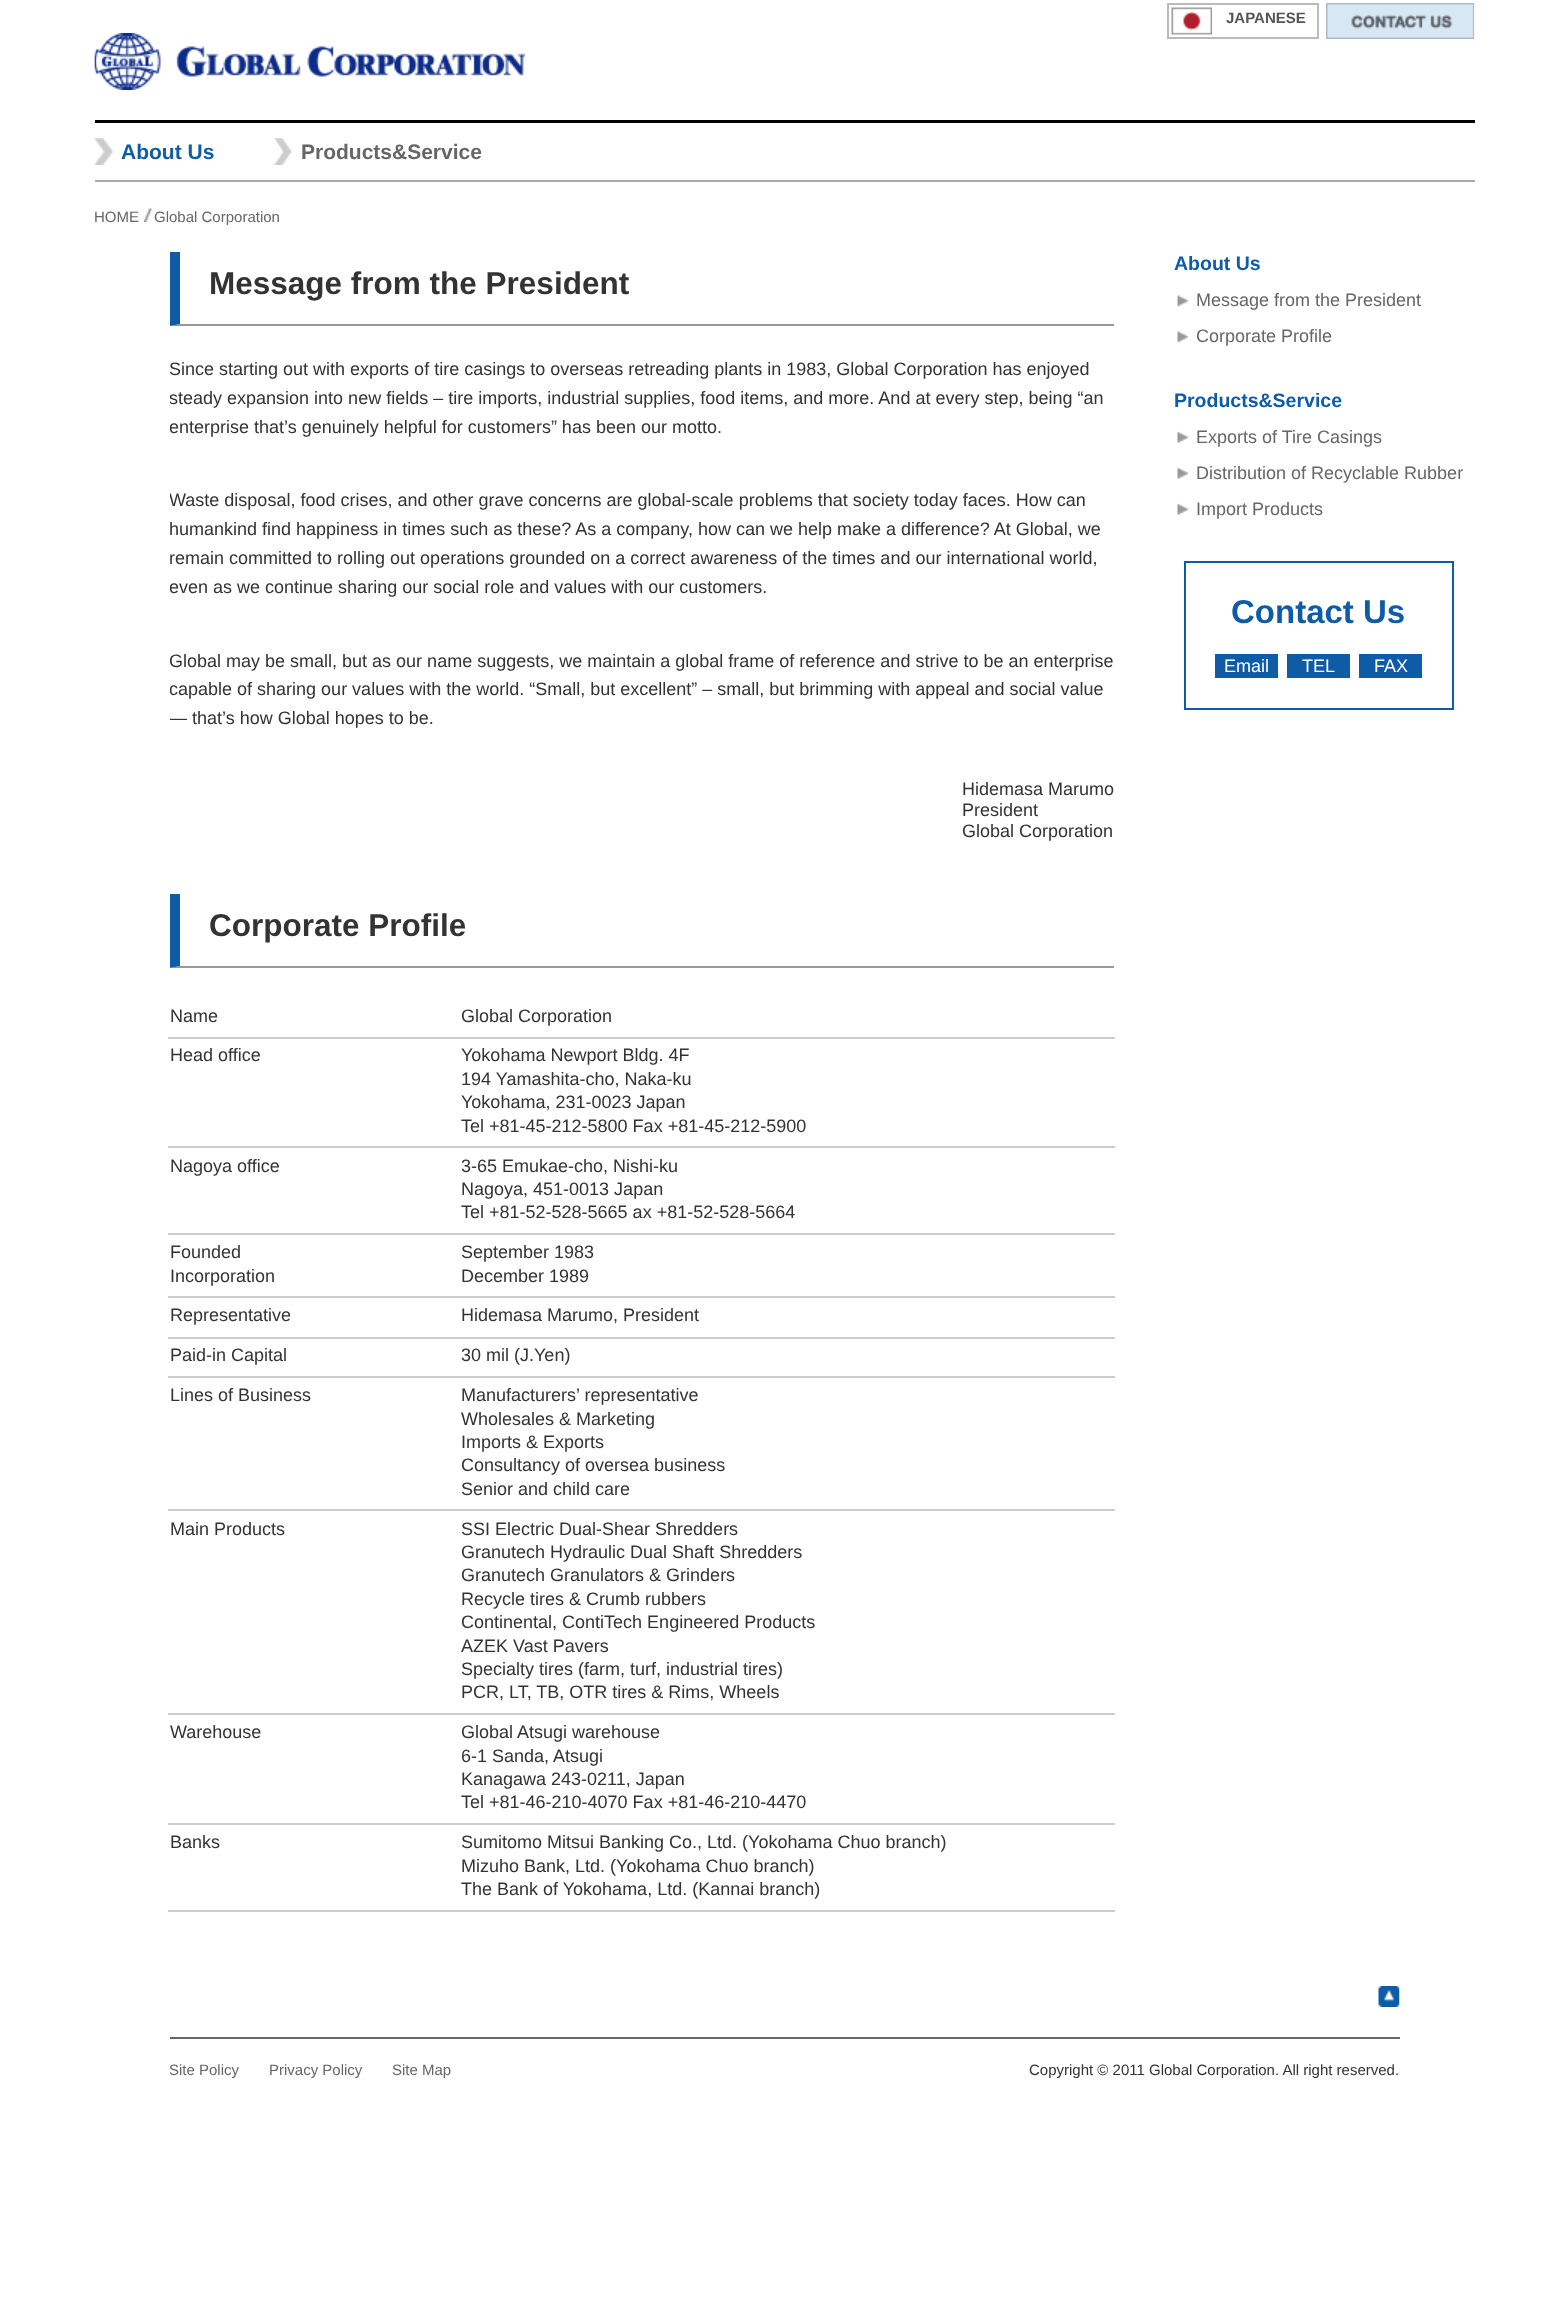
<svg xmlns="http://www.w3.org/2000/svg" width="1567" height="2316">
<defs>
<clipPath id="clip1"><rect x="170" y="356" width="945" height="486"/></clipPath>
<clipPath id="clip2"><rect x="170" y="2061" width="1230" height="17"/></clipPath>
</defs>
<rect width="100%" height="100%" fill="#fff"/>
<image x="1171" y="7" width="41" height="28" href="media/1.png"/>
<rect x="1168" y="4" width="150" height="34" fill="none" stroke="#bbb" stroke-width="2"/>
<text x="1226" y="23" style="font-family:Liberation Sans;font-size:15px;font-weight:bold;fill:#555">JAPANESE</text>
<image x="1326" y="3" width="149" height="36" href="media/2.png"/>
<image x="94" y="33" width="431" height="57" href="media/3.png"/>
<rect x="95" y="120" width="1380" height="3" fill="#000"/>
<rect x="95" y="180" width="1380" height="2" fill="#aaa"/>
<image x="94" y="138" width="20" height="27" href="media/4.png"/>
<text x="121" y="159" style="font-family:Liberation Sans;font-size:21px;font-weight:bold;fill:#0e5ca7">About Us</text>
<image x="274" y="138" width="19" height="27" href="media/5.png"/>
<text x="301" y="159" style="font-family:Liberation Sans;font-size:21px;font-weight:bold;fill:#666">Products&amp;Service</text>
<text x="94" y="222" style="font-family:Liberation Sans;font-size:15px;fill:#666">HOME</text>
<image x="144" y="208" width="8" height="14" href="media/6.png"/>
<text x="154" y="222" style="font-family:Liberation Sans;font-size:15px;fill:#666">Global Corporation</text>
<path d="M1114 326h-944l10-2h934z" fill="#999"/>
<path d="M170 326v-74h10v72z" fill="#0e5ca7"/>
<text x="209" y="294" style="font-family:Liberation Sans;font-size:31.5px;font-weight:bold;fill:#333">Message from the President</text>
<text x="169" y="375" style="font-family:Liberation Sans;font-size:18px;fill:#333">Since starting out with exports of tire casings to overseas retreading plants in 1983, Global Corporation has enjoyed</text>
<g clip-path="url(#clip1)">
<text x="169" y="404" style="font-family:Liberation Sans;font-size:18px;fill:#333">steady expansion into new fields – tire imports, industrial supplies, food items, and more. And at every step, being “an</text>
<text x="169" y="433" style="font-family:Liberation Sans;font-size:18px;fill:#333">enterprise that’s genuinely helpful for customers” has been our motto.</text>
<text x="169" y="506" style="font-family:Liberation Sans;font-size:18px;fill:#333">Waste disposal, food crises, and other grave concerns are global-scale problems that society today faces. How can</text>
</g>
<text x="169" y="535" style="font-family:Liberation Sans;font-size:18px;fill:#333">humankind find happiness in times such as these? As a company, how can we help make a difference? At Global, we</text>
<text x="169" y="564" style="font-family:Liberation Sans;font-size:18px;fill:#333">remain committed to rolling out operations grounded on a correct awareness of the times and our international world,</text>
<g clip-path="url(#clip1)">
<text x="169" y="593" style="font-family:Liberation Sans;font-size:18px;fill:#333">even as we continue sharing our social role and values with our customers.</text>
<text x="169" y="667" style="font-family:Liberation Sans;font-size:18px;fill:#333">Global may be small, but as our name suggests, we maintain a global frame of reference and strive to be an enterprise</text>
<text x="169" y="695" style="font-family:Liberation Sans;font-size:18px;fill:#333">capable of sharing our values with the world. “Small, but excellent” – small, but brimming with appeal and social value</text>
<text x="169" y="724" style="font-family:Liberation Sans;font-size:18px;fill:#333">— that’s how Global hopes to be.</text>
</g>
<text x="962" y="795" style="font-family:Liberation Sans;font-size:18px;fill:#333">Hidemasa Marumo</text>
<text x="962" y="816" style="font-family:Liberation Sans;font-size:18px;fill:#333">President</text>
<text x="962" y="837" style="font-family:Liberation Sans;font-size:18px;fill:#333">Global Corporation</text>
<path d="M1114 968h-944l10-2h934z" fill="#999"/>
<path d="M170 968v-74h10v72z" fill="#0e5ca7"/>
<text x="209" y="936" style="font-family:Liberation Sans;font-size:31.5px;font-weight:bold;fill:#333">Corporate Profile</text>
<text x="170" y="1022" style="font-family:Liberation Sans;font-size:18px;fill:#333">Name</text>
<rect x="168" y="1037" width="947" height="2" fill="#ccc"/>
<text x="461" y="1022" style="font-family:Liberation Sans;font-size:18px;fill:#333">Global Corporation</text>
<text x="170" y="1061" style="font-family:Liberation Sans;font-size:18px;fill:#333">Head office</text>
<rect x="168" y="1146" width="947" height="2" fill="#ccc"/>
<text x="461" y="1061" style="font-family:Liberation Sans;font-size:18px;fill:#333">Yokohama Newport Bldg. 4F</text>
<text x="461" y="1085" style="font-family:Liberation Sans;font-size:18px;fill:#333">194 Yamashita-cho, Naka-ku</text>
<text x="461" y="1108" style="font-family:Liberation Sans;font-size:18px;fill:#333">Yokohama, 231-0023 Japan</text>
<text x="461" y="1132" style="font-family:Liberation Sans;font-size:18px;fill:#333">Tel +81-45-212-5800 Fax +81-45-212-5900</text>
<text x="170" y="1172" style="font-family:Liberation Sans;font-size:18px;fill:#333">Nagoya office</text>
<rect x="168" y="1233" width="947" height="2" fill="#ccc"/>
<text x="461" y="1172" style="font-family:Liberation Sans;font-size:18px;fill:#333">3-65 Emukae-cho, Nishi-ku</text>
<text x="461" y="1195" style="font-family:Liberation Sans;font-size:18px;fill:#333">Nagoya, 451-0013 Japan</text>
<text x="461" y="1218" style="font-family:Liberation Sans;font-size:18px;fill:#333">Tel +81-52-528-5665 ax +81-52-528-5664</text>
<text x="170" y="1258" style="font-family:Liberation Sans;font-size:18px;fill:#333">Founded</text>
<text x="170" y="1282" style="font-family:Liberation Sans;font-size:18px;fill:#333">Incorporation</text>
<rect x="168" y="1296" width="947" height="2" fill="#ccc"/>
<text x="461" y="1258" style="font-family:Liberation Sans;font-size:18px;fill:#333">September 1983</text>
<text x="461" y="1282" style="font-family:Liberation Sans;font-size:18px;fill:#333">December 1989</text>
<text x="170" y="1321" style="font-family:Liberation Sans;font-size:18px;fill:#333">Representative</text>
<rect x="168" y="1337" width="947" height="2" fill="#ccc"/>
<text x="461" y="1321" style="font-family:Liberation Sans;font-size:18px;fill:#333">Hidemasa Marumo, President</text>
<text x="170" y="1361" style="font-family:Liberation Sans;font-size:18px;fill:#333">Paid-in Capital</text>
<rect x="168" y="1376" width="947" height="2" fill="#ccc"/>
<text x="461" y="1361" style="font-family:Liberation Sans;font-size:18px;fill:#333">30 mil (J.Yen)</text>
<text x="170" y="1401" style="font-family:Liberation Sans;font-size:18px;fill:#333">Lines of Business</text>
<rect x="168" y="1509" width="947" height="2" fill="#ccc"/>
<text x="461" y="1401" style="font-family:Liberation Sans;font-size:18px;fill:#333">Manufacturers’ representative</text>
<text x="461" y="1425" style="font-family:Liberation Sans;font-size:18px;fill:#333">Wholesales &amp; Marketing</text>
<text x="461" y="1448" style="font-family:Liberation Sans;font-size:18px;fill:#333">Imports &amp; Exports</text>
<text x="461" y="1471" style="font-family:Liberation Sans;font-size:18px;fill:#333">Consultancy of oversea business</text>
<text x="461" y="1495" style="font-family:Liberation Sans;font-size:18px;fill:#333">Senior and child care</text>
<text x="170" y="1535" style="font-family:Liberation Sans;font-size:18px;fill:#333">Main Products</text>
<rect x="168" y="1713" width="947" height="2" fill="#ccc"/>
<text x="461" y="1535" style="font-family:Liberation Sans;font-size:18px;fill:#333">SSI Electric Dual-Shear Shredders</text>
<text x="461" y="1558" style="font-family:Liberation Sans;font-size:18px;fill:#333">Granutech Hydraulic Dual Shaft Shredders</text>
<text x="461" y="1581" style="font-family:Liberation Sans;font-size:18px;fill:#333">Granutech Granulators &amp; Grinders</text>
<text x="461" y="1605" style="font-family:Liberation Sans;font-size:18px;fill:#333">Recycle tires &amp; Crumb rubbers</text>
<text x="461" y="1628" style="font-family:Liberation Sans;font-size:18px;fill:#333">Continental, ContiTech Engineered Products</text>
<text x="461" y="1652" style="font-family:Liberation Sans;font-size:18px;fill:#333">AZEK Vast Pavers</text>
<text x="461" y="1675" style="font-family:Liberation Sans;font-size:18px;fill:#333">Specialty tires (farm, turf, industrial tires)</text>
<text x="461" y="1698" style="font-family:Liberation Sans;font-size:18px;fill:#333">PCR, LT, TB, OTR tires &amp; Rims, Wheels</text>
<text x="170" y="1738" style="font-family:Liberation Sans;font-size:18px;fill:#333">Warehouse</text>
<rect x="168" y="1823" width="947" height="2" fill="#ccc"/>
<text x="461" y="1738" style="font-family:Liberation Sans;font-size:18px;fill:#333">Global Atsugi warehouse</text>
<text x="461" y="1762" style="font-family:Liberation Sans;font-size:18px;fill:#333">6-1 Sanda, Atsugi</text>
<text x="461" y="1785" style="font-family:Liberation Sans;font-size:18px;fill:#333">Kanagawa 243-0211, Japan</text>
<text x="461" y="1808" style="font-family:Liberation Sans;font-size:18px;fill:#333">Tel +81-46-210-4070 Fax +81-46-210-4470</text>
<text x="170" y="1848" style="font-family:Liberation Sans;font-size:18px;fill:#333">Banks</text>
<rect x="168" y="1910" width="947" height="2" fill="#ccc"/>
<text x="461" y="1848" style="font-family:Liberation Sans;font-size:18px;fill:#333">Sumitomo Mitsui Banking Co., Ltd. (Yokohama Chuo branch)</text>
<text x="461" y="1872" style="font-family:Liberation Sans;font-size:18px;fill:#333">Mizuho Bank, Ltd. (Yokohama Chuo branch)</text>
<text x="461" y="1895" style="font-family:Liberation Sans;font-size:18px;fill:#333">The Bank of Yokohama, Ltd. (Kannai branch)</text>
<text x="1174" y="270" style="font-family:Liberation Sans;font-size:19.5px;font-weight:bold;fill:#0e5ca7">About Us</text>
<image x="1177" y="295" width="11" height="12" href="media/7.png"/>
<text x="1196" y="306" style="font-family:Liberation Sans;font-size:18px;fill:#666">Message from the President</text>
<image x="1177" y="331" width="11" height="12" href="media/7.png"/>
<text x="1196" y="342" style="font-family:Liberation Sans;font-size:18px;fill:#666">Corporate Profile</text>
<text x="1174" y="407" style="font-family:Liberation Sans;font-size:19.5px;font-weight:bold;fill:#0e5ca7">Products&amp;Service</text>
<image x="1177" y="431" width="11" height="12" href="media/8.png"/>
<text x="1196" y="443" style="font-family:Liberation Sans;font-size:18px;fill:#666">Exports of Tire Casings</text>
<image x="1177" y="467" width="11" height="12" href="media/8.png"/>
<text x="1196" y="479" style="font-family:Liberation Sans;font-size:18px;fill:#666">Distribution of Recyclable Rubber</text>
<image x="1177" y="503" width="11" height="12" href="media/8.png"/>
<text x="1196" y="515" style="font-family:Liberation Sans;font-size:18px;fill:#666">Import Products</text>
<rect x="1185" y="562" width="268" height="147" fill="none" stroke="#0e5ca7" stroke-width="2"/>
<text x="1231" y="623" style="font-family:Liberation Sans;font-size:33px;font-weight:bold;fill:#0e5ca7">Contact Us</text>
<rect x="1215" y="654" width="63" height="24" fill="#0e5ca7"/>
<text x="1224" y="672" style="font-family:Liberation Sans;font-size:18px;fill:#fff">Email</text>
<rect x="1287" y="654" width="63" height="24" fill="#0e5ca7"/>
<text x="1302" y="672" style="font-family:Liberation Sans;font-size:18px;fill:#fff">TEL</text>
<rect x="1359" y="654" width="63" height="24" fill="#0e5ca7"/>
<text x="1374" y="672" style="font-family:Liberation Sans;font-size:18px;fill:#fff">FAX</text>
<image x="1378" y="1986" width="22" height="21" href="media/9.png"/>
<rect x="170" y="2037" width="1230" height="2" fill="#666"/>
<g clip-path="url(#clip2)">
<text x="169" y="2075" style="font-family:Liberation Sans;font-size:15px;fill:#666">Site Policy</text>
</g>
<text x="269" y="2075" style="font-family:Liberation Sans;font-size:15px;fill:#666">Privacy Policy</text>
<text x="392" y="2075" style="font-family:Liberation Sans;font-size:15px;fill:#666">Site Map</text>
<g clip-path="url(#clip2)">
<text x="1029" y="2075" style="font-family:Liberation Sans;font-size:15px;fill:#333">Copyright © 2011 Global Corporation. All right reserved.</text>
</g>
</svg>
